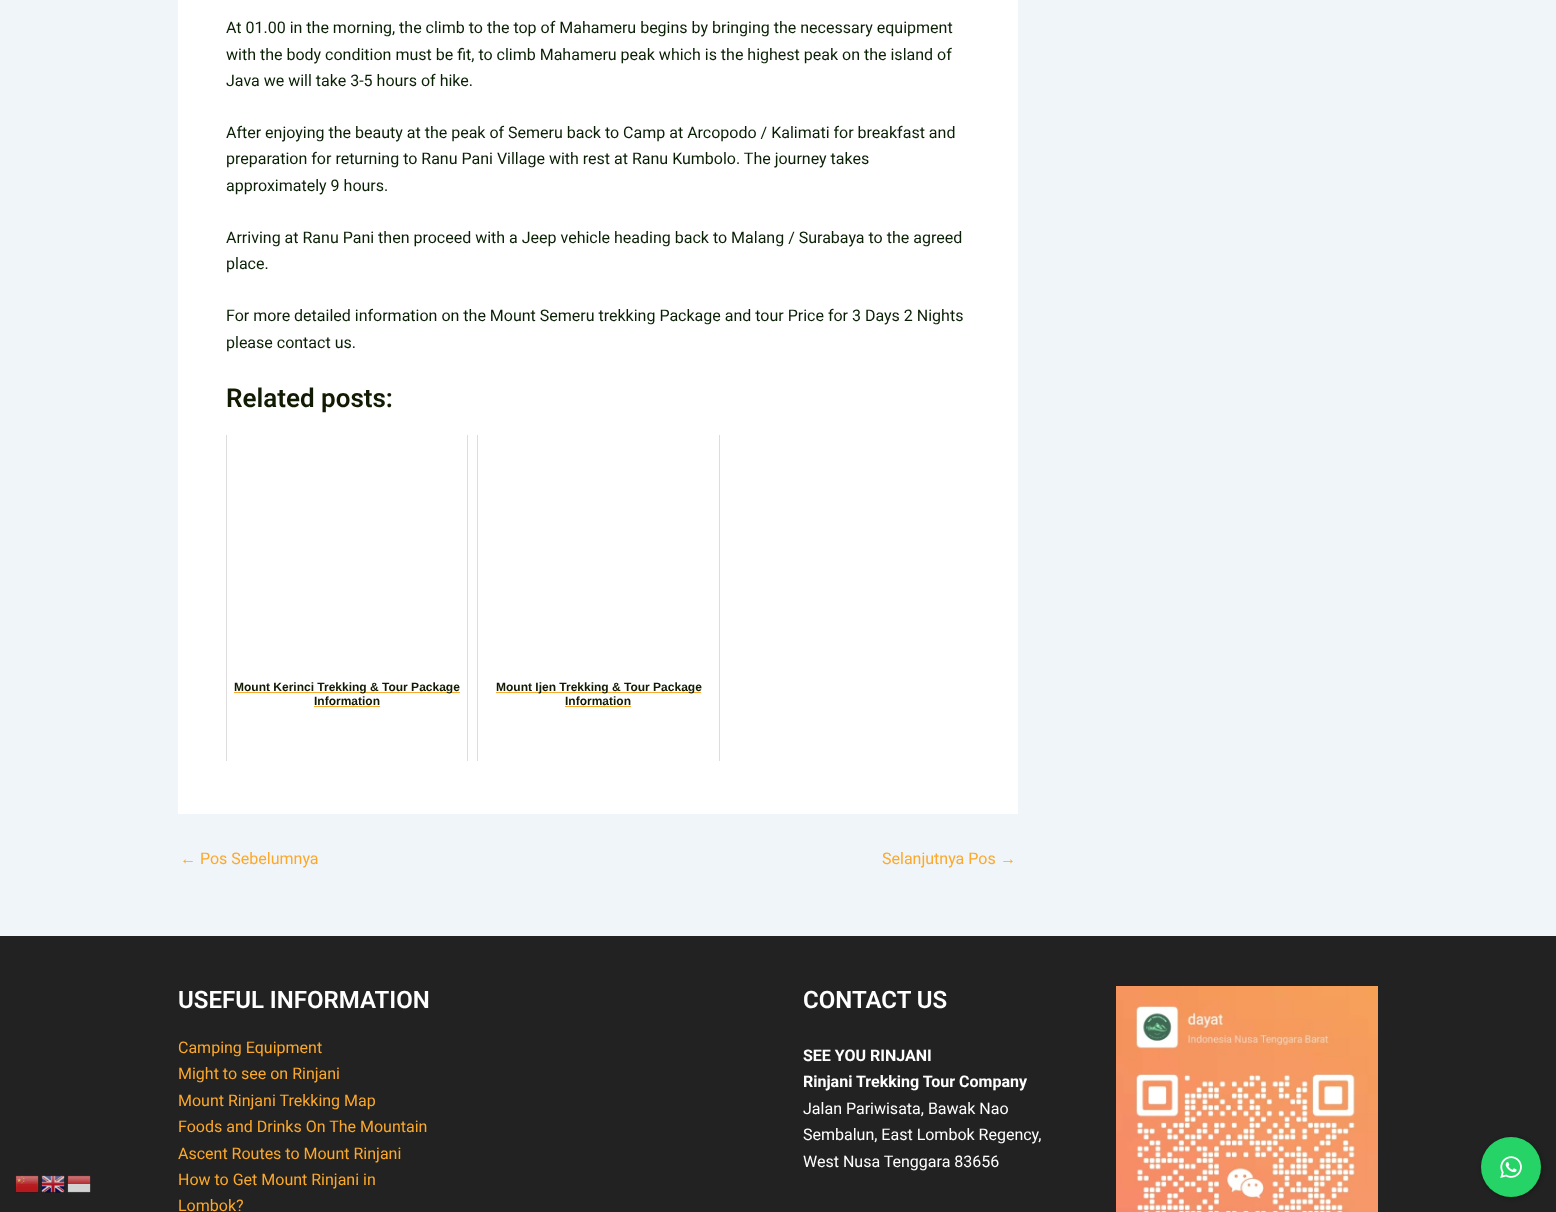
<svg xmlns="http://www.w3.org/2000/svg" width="1556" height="1212">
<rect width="100%" height="100%" fill="#f0f5fa"/>
<rect y="936" width="1556" height="276" fill="#222"/>
<image x="15" y="1175" width="24" height="18" href="media/1.png"/>
<image x="41" y="1175" width="24" height="18" href="media/2.png"/>
<image x="67" y="1175" width="24" height="18" href="media/3.png"/>
<rect x="178" width="840" height="814" fill="#fff"/>
<text x="226" y="33" style="font-family:Roboto;font-size:16px;fill:#092004">At 01.00 in the morning, the climb to the top of Mahameru begins by bringing the necessary equipment</text>
<text x="226" y="60" style="font-family:Roboto;font-size:16px;fill:#092004">with the body condition must be fit, to climb Mahameru peak which is the highest peak on the island of</text>
<text x="226" y="86" style="font-family:Roboto;font-size:16px;fill:#092004">Java we will take 3-5 hours of hike.</text>
<text x="226" y="138" style="font-family:Roboto;font-size:16px;fill:#092004">After enjoying the beauty at the peak of Semeru back to Camp at Arcopodo / Kalimati for breakfast and</text>
<text x="226" y="164" style="font-family:Roboto;font-size:16px;fill:#092004">preparation for returning to Ranu Pani Village with rest at Ranu Kumbolo. The journey takes</text>
<text x="226" y="191" style="font-family:Roboto;font-size:16px;fill:#092004">approximately 9 hours.</text>
<text x="226" y="243" style="font-family:Roboto;font-size:16px;fill:#092004">Arriving at Ranu Pani then proceed with a Jeep vehicle heading back to Malang / Surabaya to the agreed</text>
<text x="226" y="269" style="font-family:Roboto;font-size:16px;fill:#092004">place.</text>
<text x="226" y="321" style="font-family:Roboto;font-size:16px;fill:#092004">For more detailed information on the Mount Semeru trekking Package and tour Price for 3 Days 2 Nights</text>
<text x="226" y="348" style="font-family:Roboto;font-size:16px;fill:#092004">please contact us.</text>
<text x="226" y="407" style="font-family:Roboto;font-size:26px;font-weight:600;fill:#111a03">Related posts:</text>
<rect x="467" y="435" width="1" height="326" fill="#ddd"/>
<rect x="226" y="435" width="1" height="326" fill="#ddd"/>
<rect x="234" y="692" width="226" height="1" fill="#fca82a"/>
<text x="234" y="691" style="font-family:Liberation Sans;font-size:12px;font-weight:bold;fill:#111a03">Mount Kerinci Trekking &amp; Tour Package</text>
<text x="314" y="705" style="font-family:Liberation Sans;font-size:12px;font-weight:bold;fill:#111a03">Information</text>
<rect x="314" y="706" width="66" height="1" fill="#fca82a"/>
<rect x="719" y="435" width="1" height="326" fill="#ddd"/>
<rect x="477" y="435" width="1" height="326" fill="#ddd"/>
<rect x="496" y="692" width="205" height="1" fill="#fca82a"/>
<text x="496" y="691" style="font-family:Liberation Sans;font-size:12px;font-weight:bold;fill:#111a03">Mount Ijen Trekking &amp; Tour Package</text>
<text x="565" y="705" style="font-family:Liberation Sans;font-size:12px;font-weight:bold;fill:#111a03">Information</text>
<rect x="565" y="706" width="66" height="1" fill="#fca82a"/>
<text x="180" y="864" style="font-family:Liberation Sans;font-size:16px;fill:#fca82a">←</text>
<text x="200" y="864" style="font-family:Roboto;font-size:16px;fill:#fca82a">Pos Sebelumnya</text>
<text x="882" y="864" style="font-family:Roboto;font-size:16px;fill:#fca82a">Selanjutnya Pos</text>
<text x="1000" y="864" style="font-family:Liberation Sans;font-size:16px;fill:#fca82a">→</text>
<text x="178" y="1008" style="font-family:Roboto;font-size:24px;font-weight:600;fill:#fff">USEFUL INFORMATION</text>
<text x="178" y="1053" style="font-family:Roboto;font-size:16px;fill:#fca82a">Camping Equipment</text>
<text x="178" y="1079" style="font-family:Roboto;font-size:16px;fill:#fca82a">Might to see on Rinjani</text>
<text x="178" y="1106" style="font-family:Roboto;font-size:16px;fill:#fca82a">Mount Rinjani Trekking Map</text>
<text x="178" y="1132" style="font-family:Roboto;font-size:16px;fill:#fca82a">Foods and Drinks On The Mountain</text>
<text x="178" y="1159" style="font-family:Roboto;font-size:16px;fill:#fca82a">Ascent Routes to Mount Rinjani</text>
<text x="178" y="1185" style="font-family:Roboto;font-size:16px;fill:#fca82a">How to Get Mount Rinjani in</text>
<text x="178" y="1211" style="font-family:Roboto;font-size:16px;fill:#fca82a">Lombok?</text>
<text x="803" y="1008" style="font-family:Roboto;font-size:24px;font-weight:600;fill:#fff">CONTACT US</text>
<text x="803" y="1061" style="font-family:Roboto;font-size:16px;font-weight:bold;fill:#fff">SEE YOU RINJANI</text>
<text x="803" y="1087" style="font-family:Roboto;font-size:16px;font-weight:bold;fill:#fff">Rinjani Trekking Tour Company</text>
<text x="803" y="1114" style="font-family:Roboto;font-size:16px;fill:#fff">Jalan Pariwisata, Bawak Nao</text>
<text x="803" y="1140" style="font-family:Roboto;font-size:16px;fill:#fff">Sembalun, East Lombok Regency,</text>
<text x="803" y="1167" style="font-family:Roboto;font-size:16px;fill:#fff">West Nusa Tenggara 83656</text>
<image x="1116" y="986" width="262" height="226" href="media/4.png"/>
<rect x="1482" y="1138" width="60" height="60" rx="30" fill="#0000004d" filter="blur(2px)"/>
<circle cx="1511" cy="1167" r="30" fill="#25d366"/>
<image x="1500" y="1156" width="22" height="22" href="media/5.png"/>
</svg>
